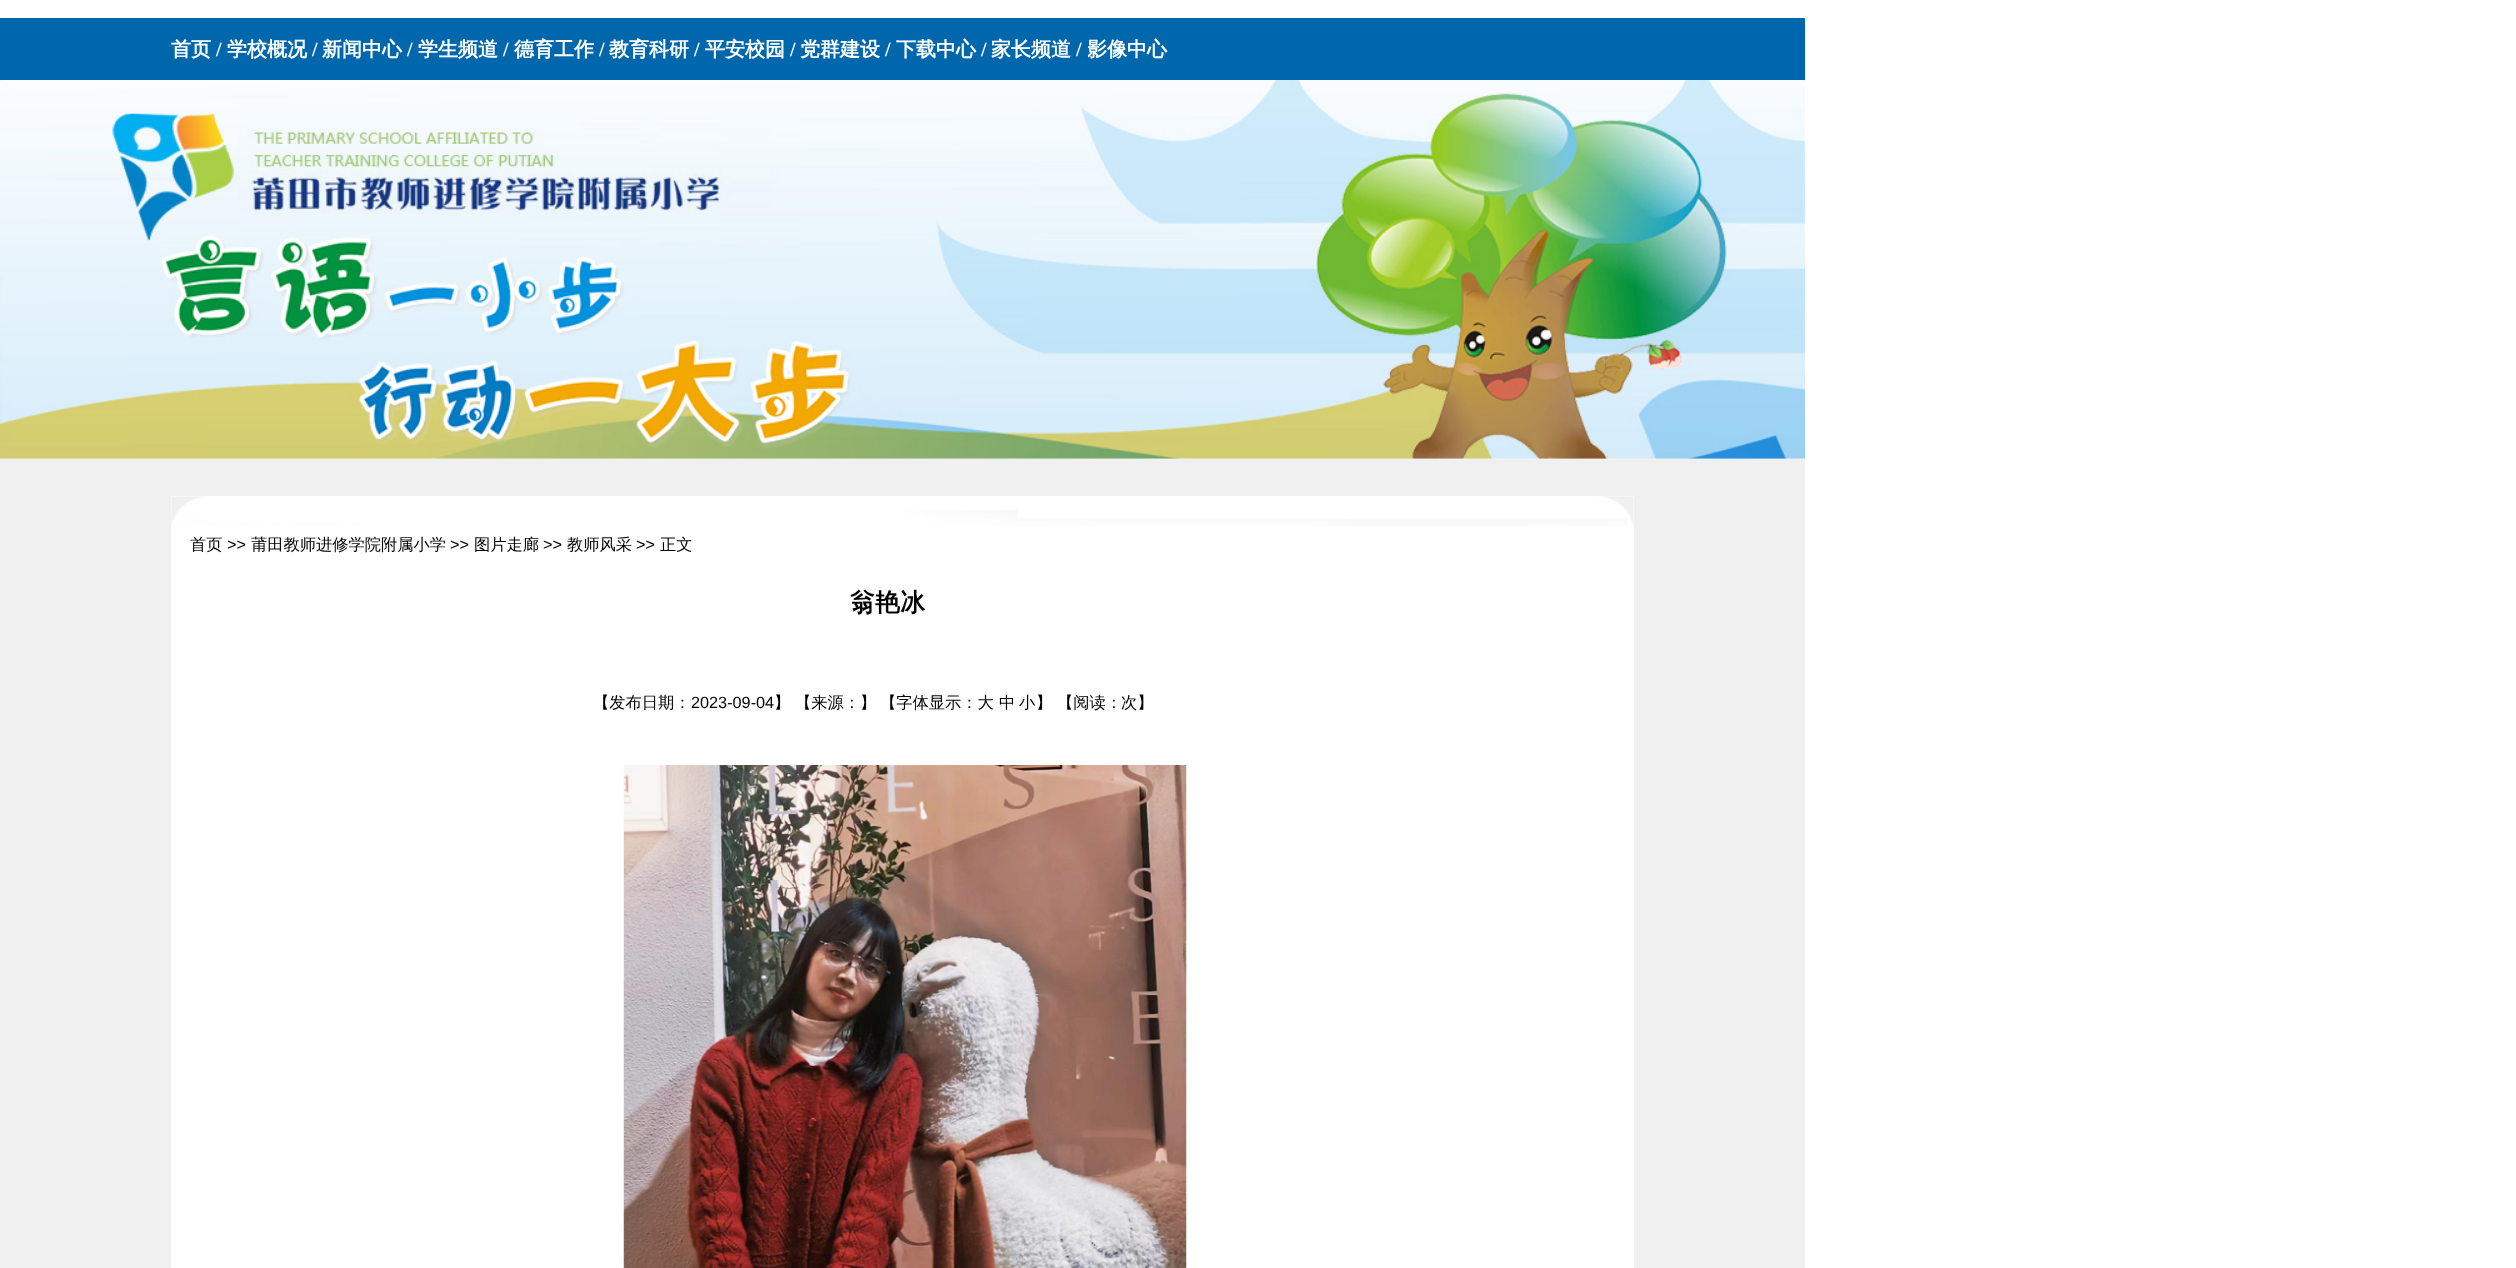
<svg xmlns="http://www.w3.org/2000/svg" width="2516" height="1268">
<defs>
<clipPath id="clip1"><rect x="1088" y="19" width="80" height="61"/></clipPath>
</defs>
<rect width="100%" height="100%" fill="#fff"/>
<rect y="458" width="1805" height="1" fill="#f5f5f5"/>
<rect y="18" width="1805" height="62" fill="#0067ac"/>
<text x="171" y="56" style="font-family:WenQuanYi Zen Hei;font-size:20px;font-weight:bold;fill:#fff">首页</text>
<text x="216" y="56" style="font-family:Liberation Serif;font-size:20px;font-weight:bold;fill:#fff">/</text>
<text x="227" y="56" style="font-family:WenQuanYi Zen Hei;font-size:20px;font-weight:bold;fill:#fff">学校概况</text>
<text x="312" y="56" style="font-family:Liberation Serif;font-size:20px;font-weight:bold;fill:#fff">/</text>
<text x="322" y="56" style="font-family:WenQuanYi Zen Hei;font-size:20px;font-weight:bold;fill:#fff">新闻中心</text>
<text x="407" y="56" style="font-family:Liberation Serif;font-size:20px;font-weight:bold;fill:#fff">/</text>
<text x="418" y="56" style="font-family:WenQuanYi Zen Hei;font-size:20px;font-weight:bold;fill:#fff">学生频道</text>
<text x="503" y="56" style="font-family:Liberation Serif;font-size:20px;font-weight:bold;fill:#fff">/</text>
<text x="514" y="56" style="font-family:WenQuanYi Zen Hei;font-size:20px;font-weight:bold;fill:#fff">德育工作</text>
<text x="599" y="56" style="font-family:Liberation Serif;font-size:20px;font-weight:bold;fill:#fff">/</text>
<text x="609" y="56" style="font-family:WenQuanYi Zen Hei;font-size:20px;font-weight:bold;fill:#fff">教育科研</text>
<text x="694" y="56" style="font-family:Liberation Serif;font-size:20px;font-weight:bold;fill:#fff">/</text>
<text x="705" y="56" style="font-family:WenQuanYi Zen Hei;font-size:20px;font-weight:bold;fill:#fff">平安校园</text>
<text x="790" y="56" style="font-family:Liberation Serif;font-size:20px;font-weight:bold;fill:#fff">/</text>
<text x="800" y="56" style="font-family:WenQuanYi Zen Hei;font-size:20px;font-weight:bold;fill:#fff">党群建设</text>
<text x="885" y="56" style="font-family:Liberation Serif;font-size:20px;font-weight:bold;fill:#fff">/</text>
<text x="896" y="56" style="font-family:WenQuanYi Zen Hei;font-size:20px;font-weight:bold;fill:#fff">下载中心</text>
<text x="981" y="56" style="font-family:Liberation Serif;font-size:20px;font-weight:bold;fill:#fff">/</text>
<text x="991" y="56" style="font-family:WenQuanYi Zen Hei;font-size:20px;font-weight:bold;fill:#fff">家长频道</text>
<text x="1076" y="56" style="font-family:Liberation Serif;font-size:20px;font-weight:bold;fill:#fff">/</text>
<g clip-path="url(#clip1)">
<text x="1087" y="56" style="font-family:WenQuanYi Zen Hei;font-size:20px;font-weight:bold;fill:#fff">影像中心</text>
</g>
<image x="0" y="80" width="1805" height="379" href="media/1.png"/>
<rect y="459" width="1805" height="809" fill="#f0f0f0"/>
<rect x="171" y="496" width="1463" height="772" fill="#fff"/>
<image x="171" y="496" width="1463" height="30" href="media/2.png"/>
<text x="190" y="550" style="font-family:WenQuanYi Zen Hei;font-size:16.25px;font-weight:500;fill:#000">首页</text>
<text x="227" y="550" style="font-family:Liberation Sans;font-size:16.25px;fill:#000">&gt;&gt;</text>
<text x="251" y="550" style="font-family:WenQuanYi Zen Hei;font-size:16.25px;font-weight:500;fill:#000">莆田教师进修学院附属小学</text>
<text x="450" y="550" style="font-family:Liberation Sans;font-size:16.25px;fill:#000">&gt;&gt;</text>
<text x="474" y="550" style="font-family:WenQuanYi Zen Hei;font-size:16.25px;font-weight:500;fill:#000">图片走廊</text>
<text x="543" y="550" style="font-family:Liberation Sans;font-size:16.25px;fill:#000">&gt;&gt;</text>
<text x="567" y="550" style="font-family:WenQuanYi Zen Hei;font-size:16.25px;font-weight:500;fill:#000">教师风采</text>
<text x="636" y="550" style="font-family:Liberation Sans;font-size:16.25px;fill:#000">&gt;&gt;</text>
<text x="660" y="550" style="font-family:WenQuanYi Zen Hei;font-size:16.25px;font-weight:500;fill:#000">正文</text>
<text x="850" y="611" style="font-family:WenQuanYi Zen Hei;font-size:25px;font-weight:bold;fill:#000">翁艳冰</text>
<text x="593" y="708" style="font-family:WenQuanYi Zen Hei;font-size:16.25px;font-weight:500;fill:#000">【发布日期：</text>
<text x="691" y="708" style="font-family:Liberation Sans;font-size:16.25px;fill:#000">2023-09-04</text>
<text x="774" y="708" style="font-family:WenQuanYi Zen Hei;font-size:16.25px;font-weight:500;fill:#000">】</text>
<text x="795" y="708" style="font-family:WenQuanYi Zen Hei;font-size:16.25px;font-weight:500;fill:#000">【来源：】</text>
<text x="880" y="708" style="font-family:WenQuanYi Zen Hei;font-size:16.25px;font-weight:500;fill:#000">【字体显示：大</text>
<text x="999" y="708" style="font-family:WenQuanYi Zen Hei;font-size:16.25px;font-weight:500;fill:#000">中</text>
<text x="1019" y="708" style="font-family:WenQuanYi Zen Hei;font-size:16.25px;font-weight:500;fill:#000">小</text>
<text x="1036" y="708" style="font-family:WenQuanYi Zen Hei;font-size:16.25px;font-weight:500;fill:#000">】 【阅读：</text>
<text x="1121" y="708" style="font-family:WenQuanYi Zen Hei;font-size:16.25px;font-weight:500;fill:#000">次】</text>
<image x="623" y="765" width="564" height="503" href="media/3.png"/>
</svg>
